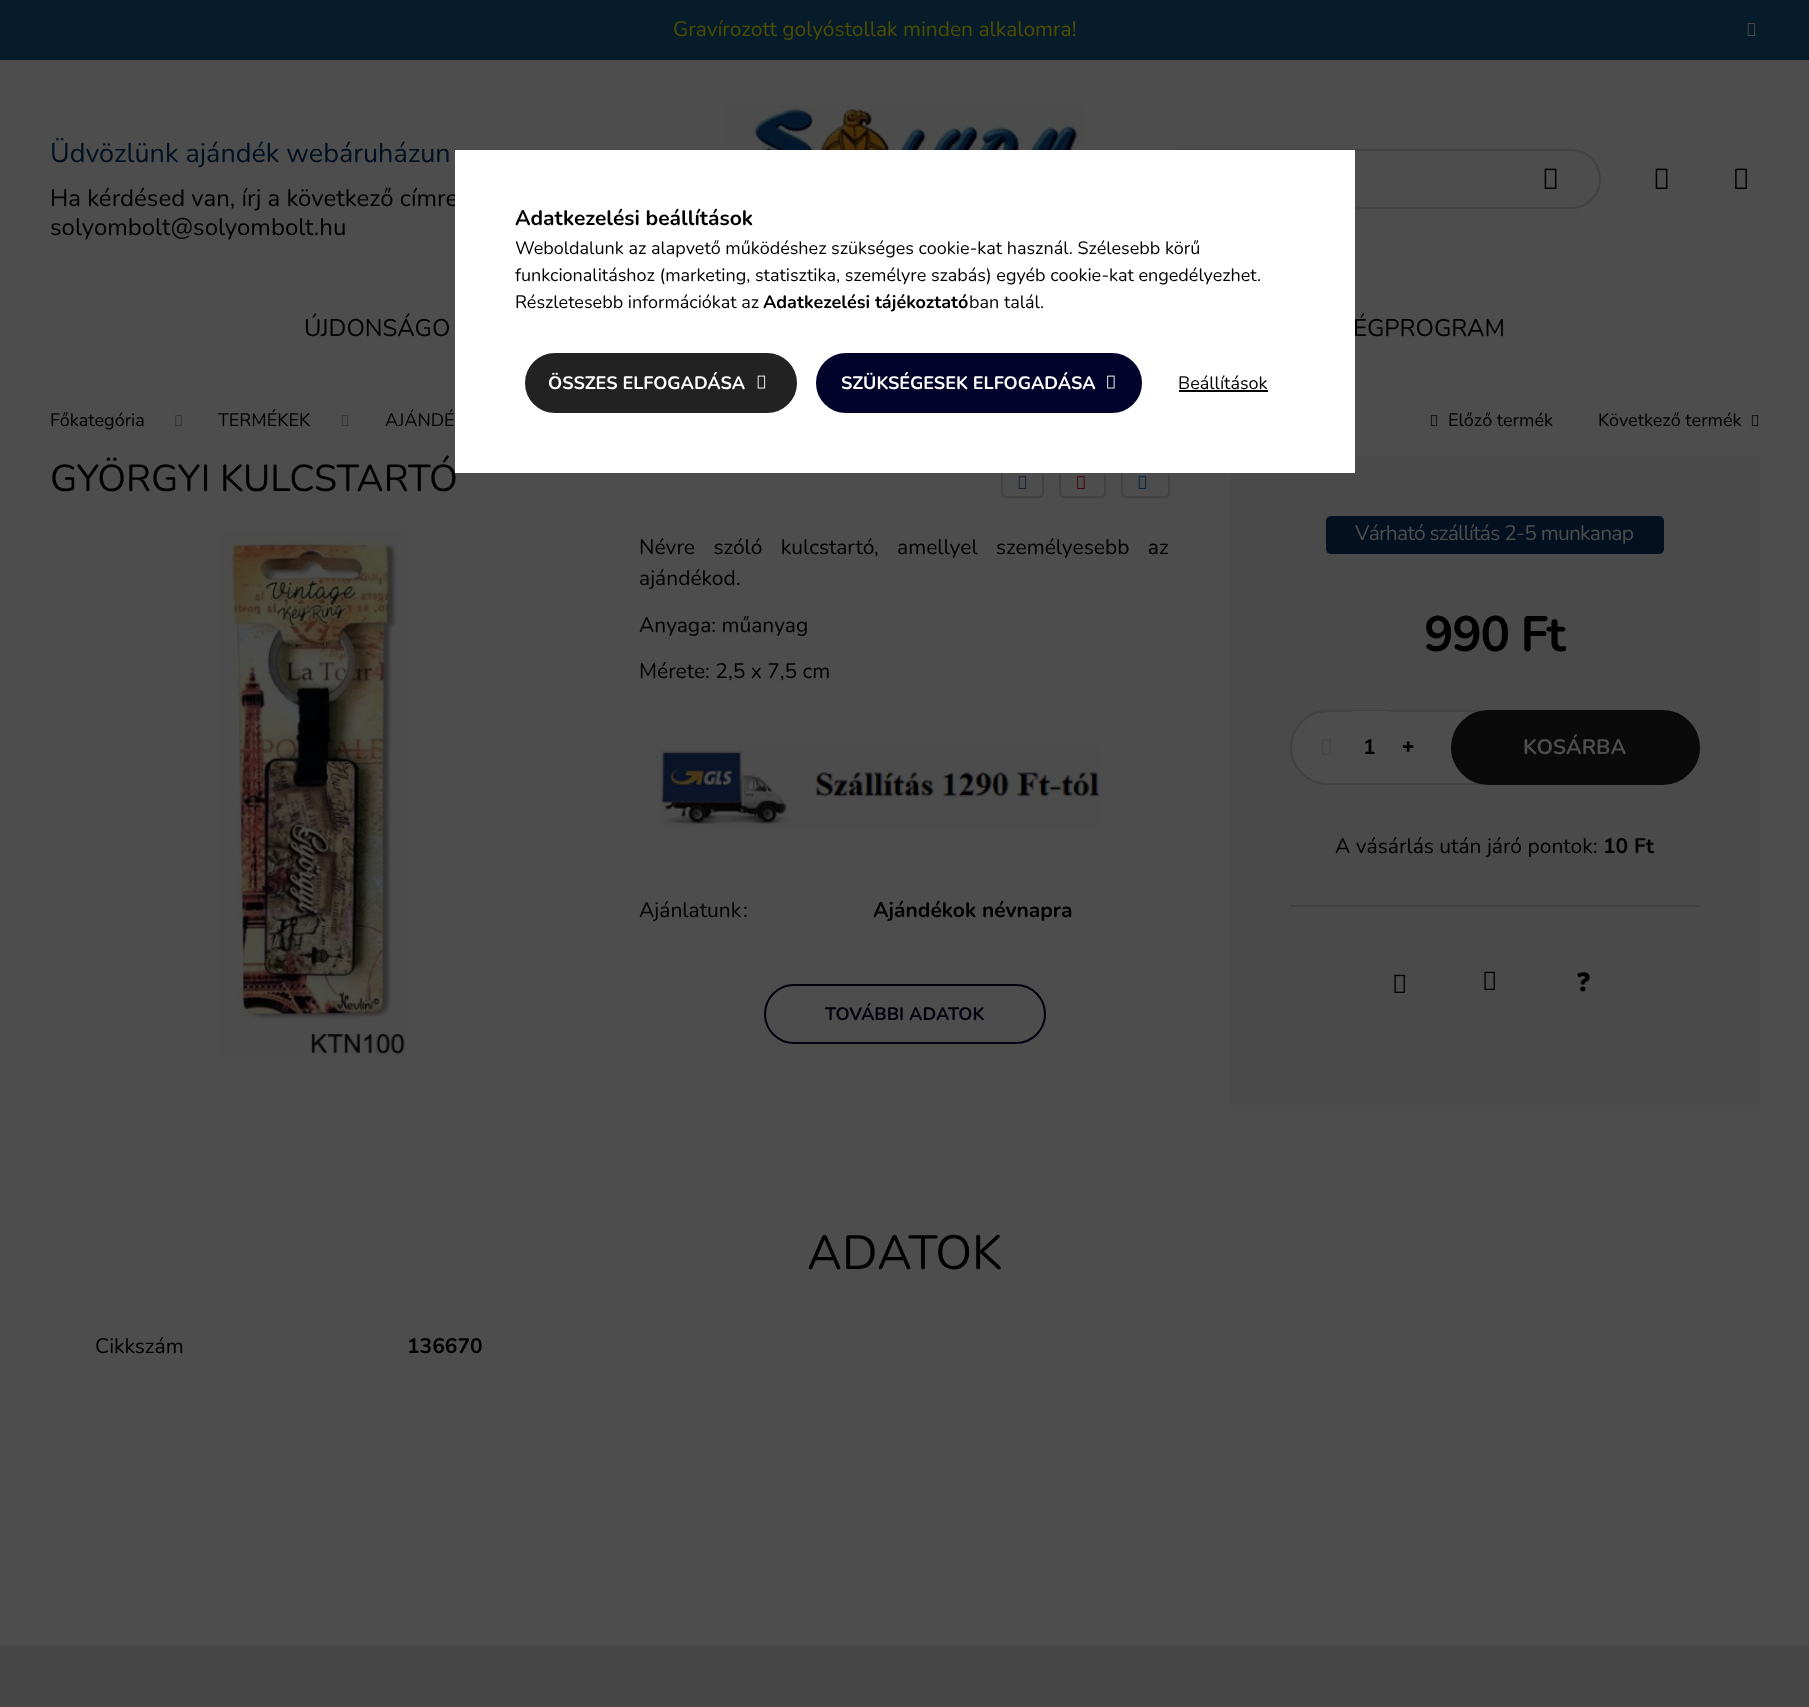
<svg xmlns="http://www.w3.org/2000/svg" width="1809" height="1707">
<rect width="100%" height="100%" fill="#4d4d4d"/>
<rect width="1809" height="60" fill="#071c2a"/>
<text x="673" y="36" style="font-family:Nunito;font-size:21px;fill:#4d4d00">Gravírozott golyóstollak minden alkalomra!</text>
<image x="1747" y="23" width="9" height="13" href="media/1.png"/>
<image x="725" y="105" width="360" height="45" href="media/2.png"/>
<text x="50" y="162" style="font-family:Nunito;font-size:27px;fill:#000f1f">Üdvözlünk ajándék webáruházun</text>
<text x="50" y="206" style="font-family:Nunito;font-size:24px;fill:#010001">Ha kérdésed van, írj a következő címre</text>
<text x="50" y="235" style="font-family:Nunito;font-size:24px;fill:#010001">solyombolt@solyombolt.hu</text>
<rect x="1152" y="150" width="448" height="58" rx="29" fill="none" stroke="#424242" stroke-width="2"/>
<image x="1544" y="168" width="13" height="21" href="media/3.png"/>
<image x="1655" y="168" width="13" height="21" href="media/3.png"/>
<image x="1735" y="168" width="12" height="21" href="media/4.png"/>
<text x="304" y="336" style="font-family:Nunito;font-size:24px;fill:#010001">ÚJDONSÁGO</text>
<text x="1353" y="336" style="font-family:Nunito;font-size:24px;fill:#010001">ÉGPROGRAM</text>
<text x="50" y="426" style="font-family:Nunito;font-size:18px;fill:#010001">Főkategória</text>
<image x="175" y="415" width="7" height="11" href="media/5.png"/>
<text x="218" y="426" style="font-family:Nunito;font-size:18px;fill:#010001">TERMÉKEK</text>
<image x="341" y="415" width="8" height="11" href="media/6.png"/>
<text x="385" y="426" style="font-family:Nunito;font-size:18px;fill:#010001">AJÁNDÉ</text>
<image x="1430" y="415" width="8" height="11" href="media/7.png"/>
<text x="1448" y="426" style="font-family:Nunito;font-size:18px;fill:#010001">Előző termék</text>
<text x="1598" y="426" style="font-family:Nunito;font-size:18px;fill:#010001">Következő termék</text>
<image x="1751" y="415" width="8" height="11" href="media/7.png"/>
<text x="50" y="491" style="font-family:Nunito;font-size:37.5px;fill:#010001">GYÖRGYI KULCSTARTÓ</text>
<rect x="1002" y="469" width="41" height="28" rx="4" fill="none" stroke="#424242" stroke-width="2"/>
<image x="1018" y="476" width="9" height="13" href="media/8.png"/>
<rect x="1060" y="469" width="45" height="28" rx="4" fill="none" stroke="#424242" stroke-width="2"/>
<image x="1077" y="476" width="8" height="13" href="media/9.png"/>
<rect x="1122" y="469" width="47" height="28" rx="4" fill="none" stroke="#424242" stroke-width="2"/>
<image x="1138" y="476" width="9" height="13" href="media/10.png"/>
<image x="219" y="531" width="188" height="525" href="media/11.png"/>
<text x="639" y="554" word-spacing="13" style="font-family:Nunito;font-size:21px;fill:#010001">Névre szóló kulcstartó, amellyel személyesebb az</text>
<text x="639" y="585" style="font-family:Nunito;font-size:21px;fill:#010001">ajándékod.</text>
<text x="639" y="632" style="font-family:Nunito;font-size:21px;fill:#010001">Anyaga: műanyag</text>
<text x="639" y="678" style="font-family:Nunito;font-size:21px;fill:#010001">Mérete: 2,5 x 7,5 cm</text>
<image x="657" y="746" width="443" height="82" href="media/12.png"/>
<text x="639" y="917" style="font-family:Nunito;font-size:21px;fill:#010001">Ajánlatunk</text>
<text x="743" y="917" style="font-family:Nunito;font-size:21px;fill:#010001">:</text>
<text x="873" y="917" style="font-family:Nunito;font-size:21px;font-weight:bold;fill:#010001">Ajándékok névnapra</text>
<rect x="765" y="985" width="280" height="58" rx="29" fill="none" stroke="#00010d" stroke-width="2"/>
<text x="825" y="1020" style="font-family:Nunito;font-size:18px;font-weight:bold;fill:#00010d">TOVÁBBI ADATOK</text>
<rect x="1230" y="456" width="530" height="650" fill="#4a4a4a"/>
<rect x="1326" y="516" width="338" height="38" rx="5" fill="#021020"/>
<text x="1355" y="540" style="font-family:Nunito;font-size:21px;letter-spacing:-0.75px;fill:#4d4d4d">Várható szállítás 2-5 munkanap</text>
<text x="1424" y="651" style="font-family:Nunito;font-size:49.5px;font-weight:bold;letter-spacing:-1.5px;fill:#010001">990 Ft</text>
<path d="M1327.5 711h167.5v73h-167.5c-20 0-36.5-16.5-36.5-36.5c0-20 16.5-36.5 36.5-36.5z" fill="#4d4d4d" stroke="#424242" stroke-width="2"/>
<image x="1322" y="739" width="9" height="16" href="media/13.png"/>
<rect x="1352" y="711" width="37" height="1" fill="#4d4d4d"/>
<text x="1363" y="754" style="font-family:Nunito;font-size:21px;font-weight:bold;fill:#010001">1</text>
<text x="1402" y="754" style="font-family:Noto Sans;font-size:21px;font-weight:900;fill:#010001">+</text>
<rect x="1452" y="711" width="247" height="73" rx="36.5" fill="#0a0a0a" stroke="#0a0a0a" stroke-width="2"/>
<text x="1523" y="754" style="font-family:Nunito;font-size:21px;font-weight:bold;fill:#4d4d4d">KOSÁRBA</text>
<text x="1335" y="853" style="font-family:Nunito;font-size:21px;fill:#010001">A vásárlás után járó pontok:</text>
<text x="1603" y="853" style="font-family:Nunito;font-size:21px;font-weight:bold;fill:#010001">10 Ft</text>
<rect x="1290" y="905" width="410" height="2" fill="#424242"/>
<image x="1394" y="974" width="11" height="19" href="media/14.png"/>
<image x="1484" y="971" width="11" height="19" href="media/14.png"/>
<text x="1577" y="991" style="font-family:Noto Sans;font-size:26px;font-weight:900;fill:#010001">?</text>
<text x="807" y="1269" style="font-family:Nunito;font-size:48px;fill:#010001">ADATOK</text>
<text x="95" y="1353" style="font-family:Nunito;font-size:21px;fill:#010001">Cikkszám</text>
<text x="407" y="1353" style="font-family:Nunito;font-size:21px;font-weight:bold;fill:#010001">136670</text>
<rect y="1646" width="1809" height="61" fill="#464646"/>
<rect x="455" y="150" width="900" height="323" fill="#fff"/>
<text x="515" y="225" style="font-family:Nunito;font-size:21px;font-weight:bold;fill:#010001">Adatkezelési beállítások</text>
<text x="515" y="254" style="font-family:Nunito;font-size:18px;fill:#010001">Weboldalunk az alapvető működéshez szükséges cookie-kat használ. Szélesebb körű</text>
<text x="515" y="281" style="font-family:Nunito;font-size:18px;fill:#010001">funkcionalitáshoz (marketing, statisztika, személyre szabás) egyéb cookie-kat engedélyezhet.</text>
<text x="515" y="308" style="font-family:Nunito;font-size:18px;fill:#010001">Részletesebb információkat az</text>
<text x="763" y="308" style="font-family:Nunito;font-size:18px;font-weight:bold;fill:#010001">Adatkezelési tájékoztató</text>
<text x="969" y="308" style="font-family:Nunito;font-size:18px;fill:#010001">ban talál.</text>
<rect x="526" y="354" width="270" height="58" rx="29" fill="#222" stroke="#222" stroke-width="2"/>
<text x="548" y="389" style="font-family:Nunito;font-size:18px;font-weight:bold;fill:#fff">ÖSSZES ELFOGADÁSA</text>
<image x="757" y="375" width="9" height="14" href="media/15.png"/>
<rect x="817" y="354" width="324" height="58" rx="29" fill="#01032b" stroke="#01032b" stroke-width="2"/>
<text x="841" y="389" style="font-family:Nunito;font-size:18px;font-weight:bold;fill:#fff">SZÜKSÉGESEK ELFOGADÁSA</text>
<image x="1107" y="375" width="8" height="14" href="media/16.png"/>
<text x="1178" y="389" style="font-family:Nunito;font-size:18px;fill:#010001">Beállítások</text>
<rect x="1179" y="390" width="89" height="2" fill="#030003"/>
</svg>
